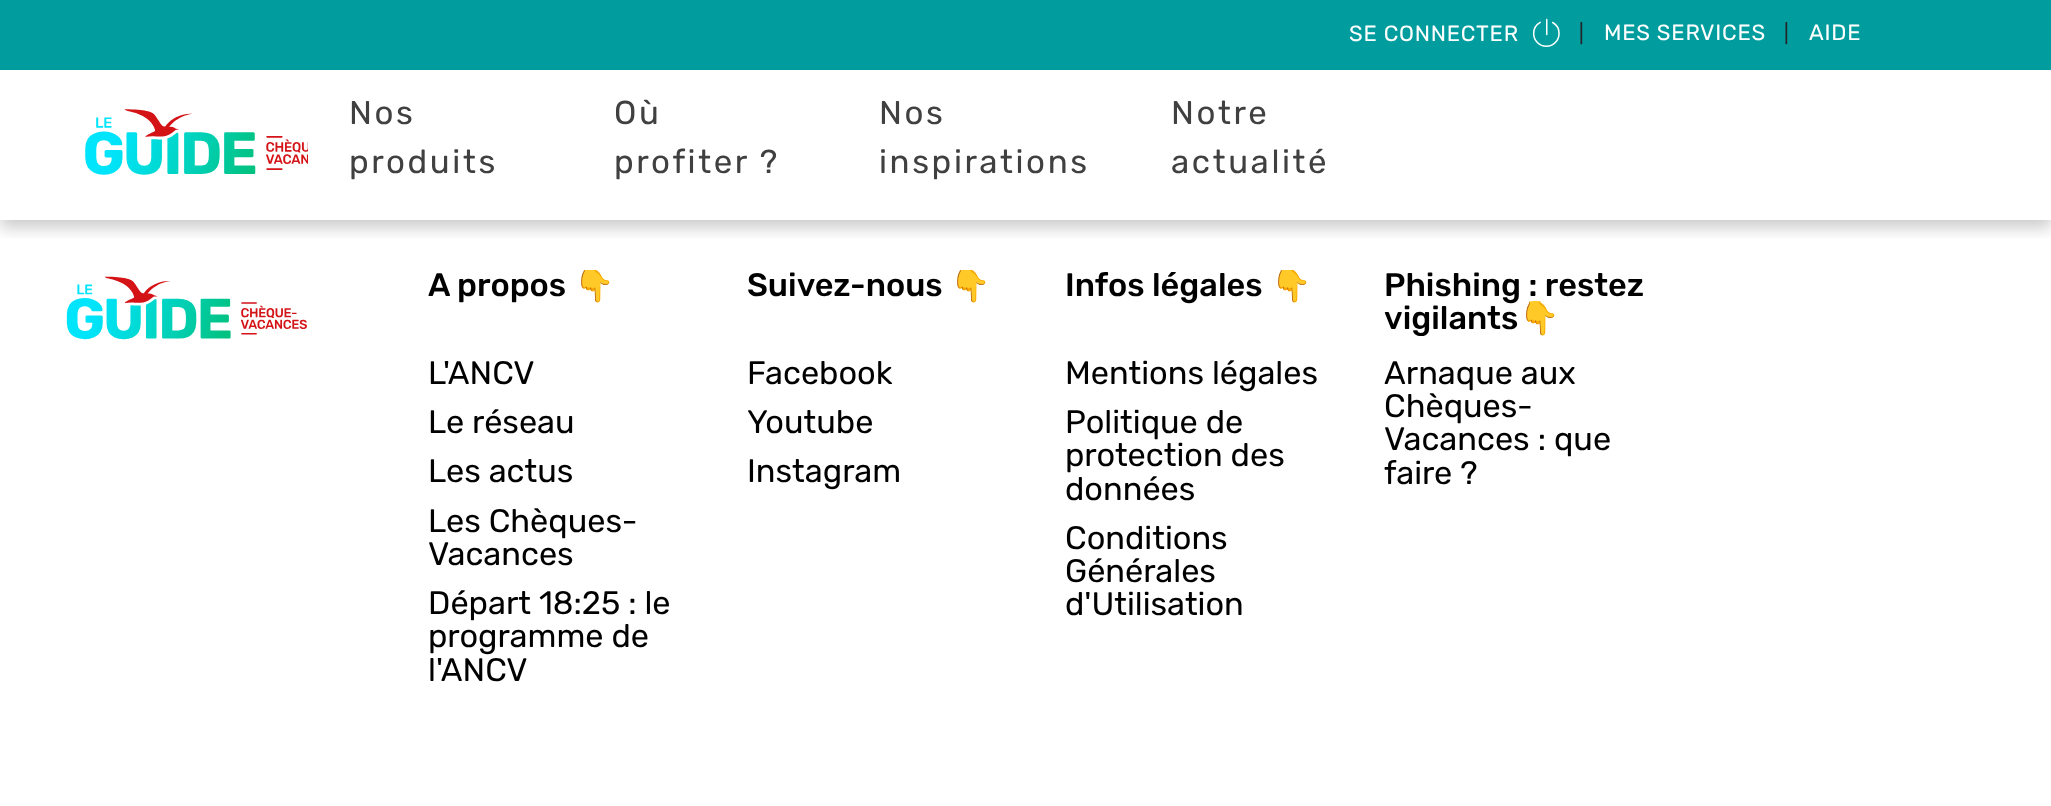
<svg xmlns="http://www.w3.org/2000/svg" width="2051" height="806">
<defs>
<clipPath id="clip1"><rect x="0" y="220" width="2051" height="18"/></clipPath>
<clipPath id="clip2"><rect x="428" y="270" width="186" height="34"/></clipPath>
<clipPath id="clip3"><rect x="746" y="270" width="244" height="34"/></clipPath>
<clipPath id="clip4"><rect x="1066" y="270" width="246" height="34"/></clipPath>
<clipPath id="clip5"><rect x="1384" y="270" width="276" height="66"/></clipPath>
</defs>
<rect width="100%" height="100%" fill="#fff"/>
<g clip-path="url(#clip1)">
<rect y="68" width="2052" height="160" fill="#00000033" filter="blur(8px)"/>
</g>
<rect width="2051" height="70" fill="#009c9e"/>
<text x="1349" y="41" style="font-family:Rubik;font-size:22px;letter-spacing:0.75px;fill:#fff">SE CONNECTER</text>
<image x="1532" y="18" width="28" height="29" href="media/1.png"/>
<text x="1579" y="40" style="font-family:Rubik;font-size:20px;fill:#212529">|</text>
<text x="1604" y="40" style="font-family:Rubik;font-size:22px;letter-spacing:0.75px;fill:#fff">MES SERVICES</text>
<text x="1784" y="40" style="font-family:Rubik;font-size:20px;fill:#212529">|</text>
<text x="1809" y="40" style="font-family:Rubik;font-size:22px;letter-spacing:0.75px;fill:#fff">AIDE</text>
<image x="85" y="109" width="223" height="66" href="media/2.png"/>
<text x="349" y="124" style="font-family:Rubik;font-size:33px;letter-spacing:2.6px;fill:#404040">Nos</text>
<text x="349" y="173" style="font-family:Rubik;font-size:33px;letter-spacing:2.6px;fill:#404040">produits</text>
<text x="614" y="124" style="font-family:Rubik;font-size:33px;letter-spacing:2.6px;fill:#404040">Où</text>
<text x="614" y="173" style="font-family:Rubik;font-size:33px;letter-spacing:2.6px;fill:#404040">profiter ?</text>
<text x="879" y="124" style="font-family:Rubik;font-size:33px;letter-spacing:2.6px;fill:#404040">Nos</text>
<text x="879" y="173" style="font-family:Rubik;font-size:33px;letter-spacing:2.6px;fill:#404040">inspirations</text>
<text x="1171" y="124" style="font-family:Rubik;font-size:33px;letter-spacing:2.6px;fill:#404040">Notre</text>
<text x="1171" y="173" style="font-family:Rubik;font-size:33px;letter-spacing:2.6px;fill:#404040">actualité</text>
<image x="66" y="276" width="241" height="64" href="media/3.png"/>
<text x="428" y="296" style="font-family:Rubik;font-size:32.5px;font-weight:500;fill:#000">A propos</text>
<g clip-path="url(#clip2)">
<text x="574" y="296" style="font-family:Noto Color Emoji;font-size:32.5px;fill:#000">👇</text>
</g>
<text x="428" y="384" style="font-family:Rubik;font-size:32.5px;fill:#000">L'ANCV</text>
<text x="428" y="433" style="font-family:Rubik;font-size:32.5px;fill:#000">Le réseau</text>
<text x="428" y="482" style="font-family:Rubik;font-size:32.5px;fill:#000">Les actus</text>
<text x="428" y="532" style="font-family:Rubik;font-size:32.5px;fill:#000">Les Chèques-</text>
<text x="428" y="565" style="font-family:Rubik;font-size:32.5px;fill:#000">Vacances</text>
<text x="428" y="614" style="font-family:Rubik;font-size:32.5px;fill:#000">Départ 18:25 : le</text>
<text x="428" y="647" style="font-family:Rubik;font-size:32.5px;fill:#000">programme de</text>
<text x="428" y="681" style="font-family:Rubik;font-size:32.5px;fill:#000">l'ANCV</text>
<text x="747" y="296" style="font-family:Rubik;font-size:32.5px;font-weight:500;fill:#000">Suivez-nous</text>
<g clip-path="url(#clip3)">
<text x="950" y="296" style="font-family:Noto Color Emoji;font-size:32.5px;fill:#000">👇</text>
</g>
<text x="747" y="384" style="font-family:Rubik;font-size:32.5px;fill:#000">Facebook</text>
<text x="747" y="433" style="font-family:Rubik;font-size:32.5px;fill:#000">Youtube</text>
<text x="747" y="482" style="font-family:Rubik;font-size:32.5px;fill:#000">Instagram</text>
<text x="1065" y="296" style="font-family:Rubik;font-size:32.5px;font-weight:500;fill:#000">Infos légales</text>
<g clip-path="url(#clip4)">
<text x="1271" y="296" style="font-family:Noto Color Emoji;font-size:32.5px;fill:#000">👇</text>
</g>
<text x="1065" y="384" style="font-family:Rubik;font-size:32.5px;fill:#000">Mentions légales</text>
<text x="1065" y="433" style="font-family:Rubik;font-size:32.5px;fill:#000">Politique de</text>
<text x="1065" y="466" style="font-family:Rubik;font-size:32.5px;fill:#000">protection des</text>
<text x="1065" y="500" style="font-family:Rubik;font-size:32.5px;fill:#000">données</text>
<text x="1065" y="549" style="font-family:Rubik;font-size:32.5px;fill:#000">Conditions</text>
<text x="1065" y="582" style="font-family:Rubik;font-size:32.5px;fill:#000">Générales</text>
<text x="1065" y="615" style="font-family:Rubik;font-size:32.5px;fill:#000">d'Utilisation</text>
<text x="1384" y="296" style="font-family:Rubik;font-size:32.5px;font-weight:500;fill:#000">Phishing : restez</text>
<g clip-path="url(#clip5)">
<text x="1384" y="329" style="font-family:Rubik;font-size:32.5px;font-weight:500;fill:#000">vigilants</text>
</g>
<text x="1519" y="329" style="font-family:Noto Color Emoji;font-size:32.5px;fill:#000">👇</text>
<text x="1384" y="384" style="font-family:Rubik;font-size:32.5px;fill:#000">Arnaque aux</text>
<text x="1384" y="417" style="font-family:Rubik;font-size:32.5px;fill:#000">Chèques-</text>
<text x="1384" y="450" style="font-family:Rubik;font-size:32.5px;fill:#000">Vacances : que</text>
<text x="1384" y="484" style="font-family:Rubik;font-size:32.5px;fill:#000">faire ?</text>
</svg>
